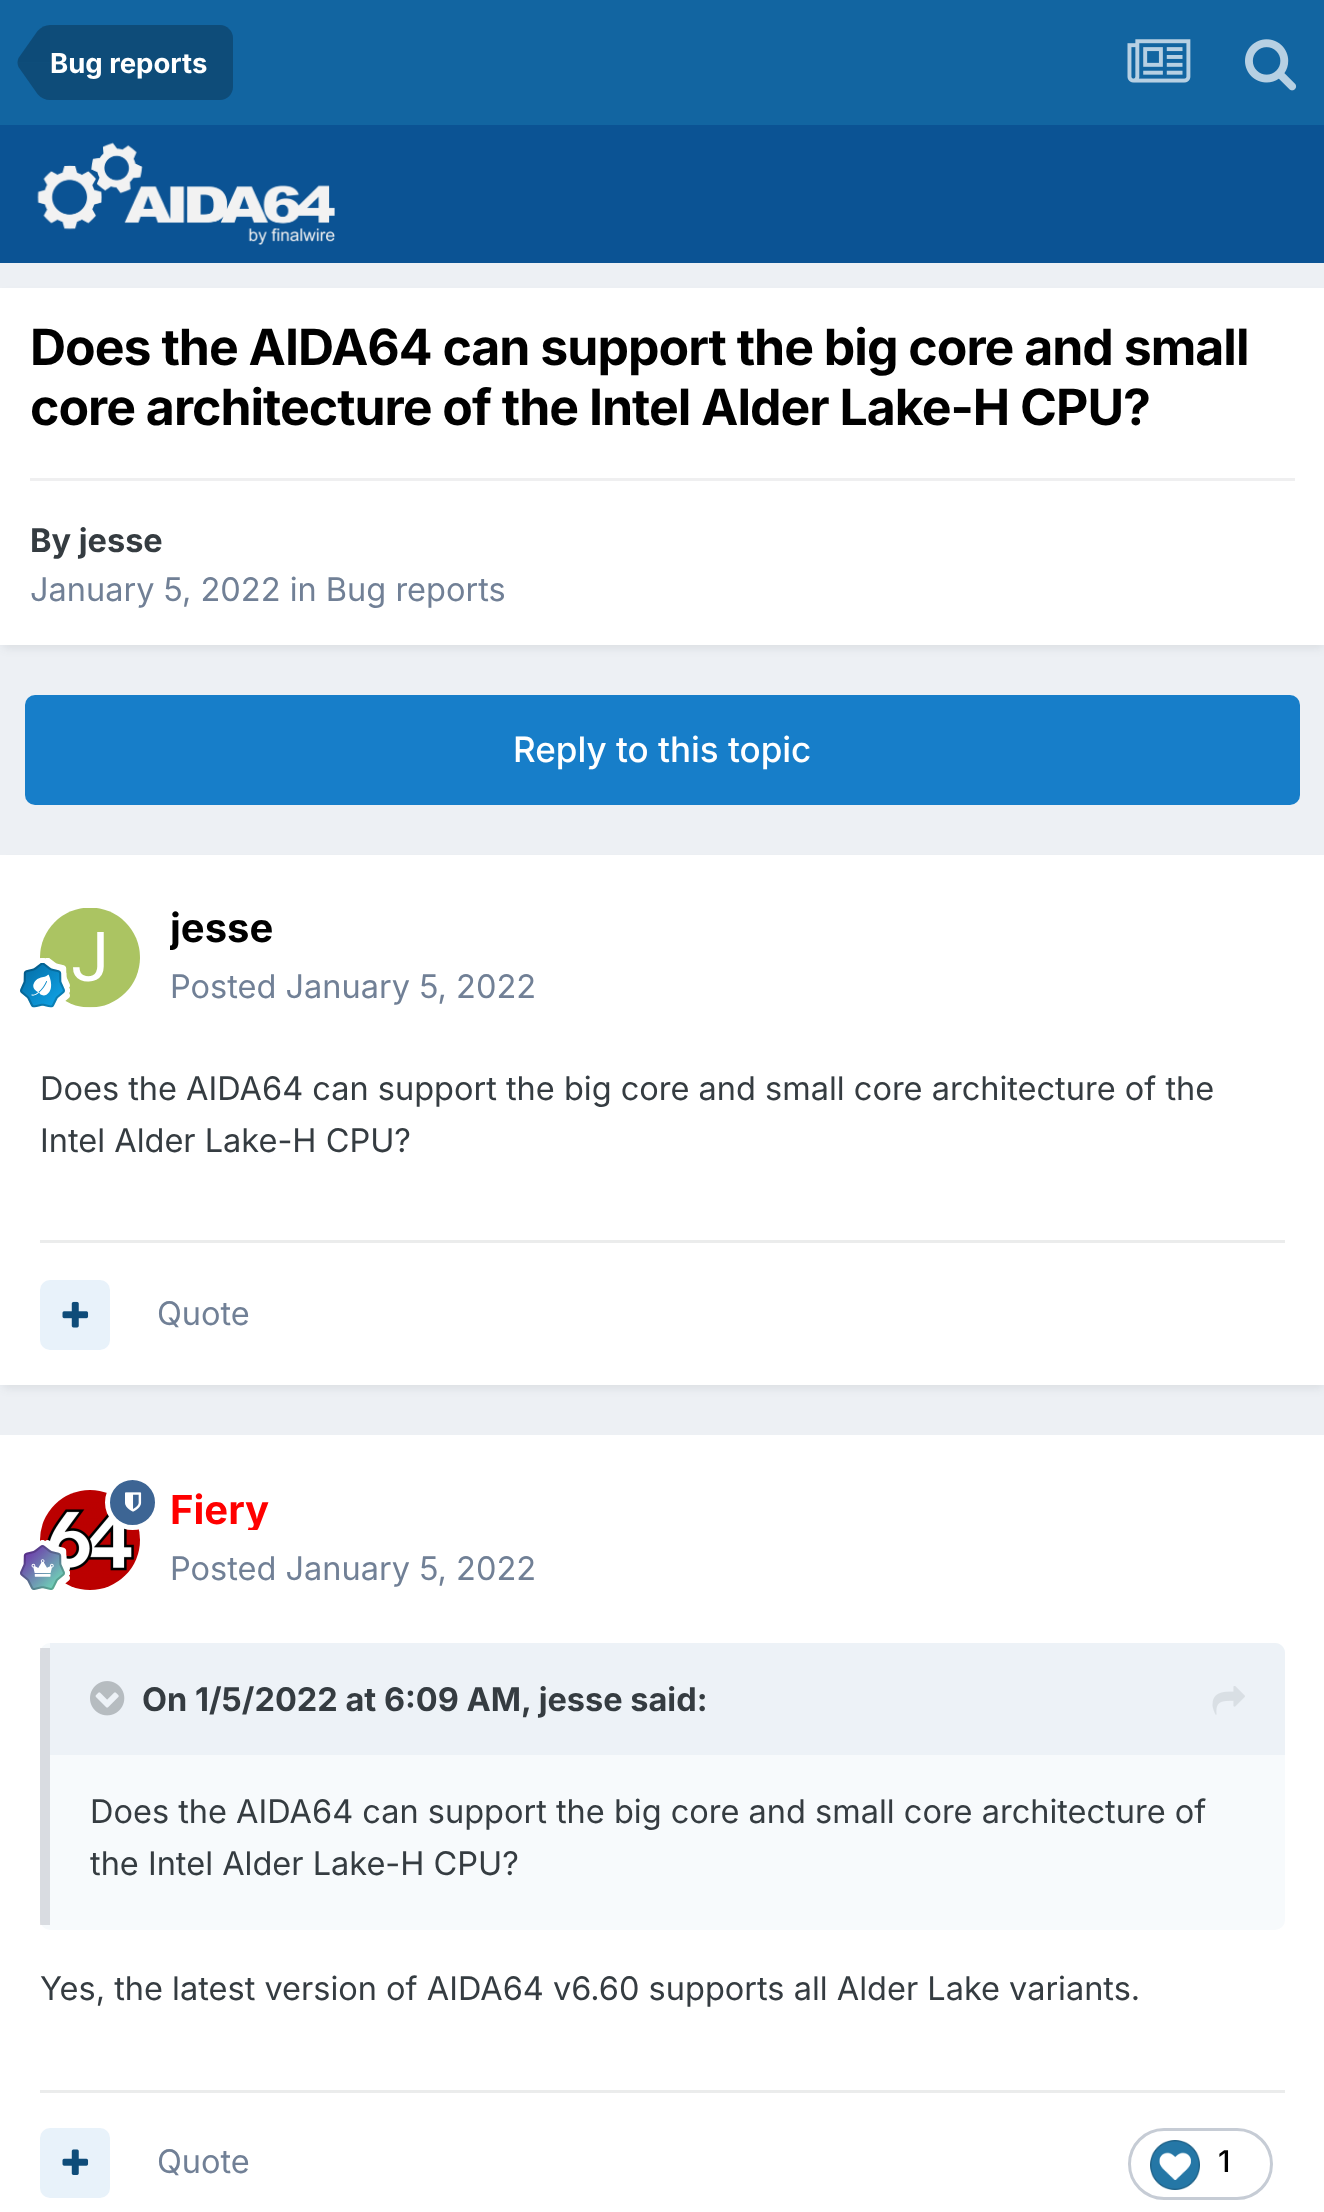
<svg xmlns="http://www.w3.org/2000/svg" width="1324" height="2212">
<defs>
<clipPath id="clip1"><rect x="170" y="905" width="103" height="45"/></clipPath>
<clipPath id="clip2"><rect x="170" y="1485" width="100" height="45"/></clipPath>
</defs>
<rect width="100%" height="100%" fill="#edf0f4"/>
<rect width="1324" height="125" fill="#1265a1"/>
<path d="M50 25h170c7 0 13 6 13 13v49c0 7-6 13-13 13h-170z" fill="#0e4c79"/>
<path d="M18.5 67c-.5-1.5-1-3-1-4.5h32.5v37.5c-4.5 0-9-2-12.5-6z" fill="#0e4c79"/>
<path d="M50 25v37.5h-32.5c0-1.5 .5-3 1-4.5l19-27c3.5-4 8-6 12.5-6z" fill="#00000040"/>
<text x="50" y="73" style="font-family:Inter;font-size:27.5px;font-weight:bold;fill:#fff">Bug reports</text>
<image x="1127" y="39" width="64" height="44" href="media/1.png"/>
<image x="1245" y="39" width="52" height="52" href="media/2.png"/>
<rect y="125" width="1324" height="138" fill="#0b5394"/>
<image x="37" y="142" width="298" height="103" href="media/3.png"/>
<rect x="3" y="295" width="1320" height="353" fill="#2d37481a" filter="blur(5px)"/>
<rect y="288" width="1324" height="357" fill="#fff"/>
<text x="30" y="365" style="font-family:Inter;font-size:50px;font-weight:bold;letter-spacing:-1px;fill:#000">Does the AIDA64 can support the big core and small</text>
<text x="30" y="425" style="font-family:Inter;font-size:50px;font-weight:bold;letter-spacing:-1px;fill:#000">core architecture of the Intel Alder Lake-H CPU?</text>
<rect x="30" y="478" width="1265" height="3" fill="#efeff0"/>
<text x="30" y="552" style="font-family:Inter;font-size:32.5px;font-weight:bold;fill:#353c41">By jesse</text>
<text x="30" y="601" style="font-family:Inter;font-size:32.5px;fill:#718096">January 5, 2022 in Bug reports</text>
<rect x="25" y="695" width="1275" height="110" rx="10" fill="#177ec9"/>
<text x="513" y="762" style="font-family:Inter;font-size:35px;font-weight:500;fill:#fff">Reply to this topic</text>
<rect x="3" y="863" width="1320" height="525" fill="#2d37481a" filter="blur(5px)"/>
<rect y="855" width="1324" height="530" fill="#fff"/>
<image x="40" y="908" width="100" height="100" href="media/4.png"/>
<image x="20" y="958" width="50" height="50" href="media/5.png"/>
<g clip-path="url(#clip1)">
<text x="170" y="942" style="font-family:Inter;font-size:40px;font-weight:bold;fill:#000">jesse</text>
</g>
<text x="170" y="998" style="font-family:Inter;font-size:32.5px;fill:#718096">Posted January 5, 2022</text>
<text x="40" y="1100" style="font-family:Inter;font-size:32.5px;fill:#353c41">Does the AIDA64 can support the big core and small core architecture of the</text>
<text x="40" y="1152" style="font-family:Inter;font-size:32.5px;fill:#353c41">Intel Alder Lake-H CPU?</text>
<rect x="40" y="1240" width="1245" height="3" fill="#ebecec"/>
<rect x="40" y="1280" width="70" height="70" rx="10" fill="#e8f2fa"/>
<image x="62" y="1301" width="27" height="27" href="media/6.png"/>
<text x="157" y="1325" style="font-family:Inter;font-size:32.5px;fill:#718096">Quote</text>
<rect y="1435" width="1324" height="777" fill="#fff"/>
<image x="40" y="1490" width="100" height="100" href="media/8.png"/>
<circle cx="132.5" cy="1502.5" r="25" fill="#3d6594" stroke="#fff" stroke-width="5"/>
<image x="125" y="1492" width="17" height="20" href="media/7.png"/>
<image x="20" y="1540" width="50" height="50" href="media/9.png"/>
<g clip-path="url(#clip2)">
<text x="170" y="1524" style="font-family:Inter;font-size:40px;font-weight:bold;fill:#f00">Fiery</text>
</g>
<text x="170" y="1580" style="font-family:Inter;font-size:32.5px;fill:#718096">Posted January 5, 2022</text>
<rect x="40" y="1643" width="1245" height="287" rx="10" fill="#f7fafc"/>
<rect x="40" y="1648" width="10" height="277" fill="#2d374826"/>
<path d="M50 1643h1225c5.5 0 10 4.5 10 10v102h-1235z" fill="#edf2f7"/>
<image x="90" y="1681" width="35" height="35" href="media/10.png"/>
<text x="142" y="1711" style="font-family:Inter;font-size:32.5px;font-weight:bold;fill:#353c41">On 1/5/2022 at 6:09 AM, jesse said:</text>
<image x="1212" y="1686" width="33" height="29" href="media/11.png"/>
<text x="90" y="1823" style="font-family:Inter;font-size:32.5px;fill:#353c41">Does the AIDA64 can support the big core and small core architecture of</text>
<text x="90" y="1875" style="font-family:Inter;font-size:32.5px;fill:#353c41">the Intel Alder Lake-H CPU?</text>
<text x="40" y="2000" style="font-family:Inter;font-size:32.5px;fill:#353c41">Yes, the latest version of AIDA64 v6.60 supports all Alder Lake variants.</text>
<rect x="40" y="2090" width="1245" height="3" fill="#ebecec"/>
<rect x="40" y="2128" width="70" height="70" rx="10" fill="#e8f2fa"/>
<image x="62" y="2149" width="27" height="26" href="media/12.png"/>
<text x="157" y="2173" style="font-family:Inter;font-size:32.5px;fill:#718096">Quote</text>
<rect x="1129.5" y="2129.5" width="142" height="69" rx="34.5" fill="none" stroke="#c6ccd5" stroke-width="3"/>
<image x="1150" y="2140" width="50" height="50" href="media/13.png"/>
<text x="1218" y="2172" style="font-family:Inter;font-size:30px;font-weight:500;fill:#000">1</text>
</svg>
